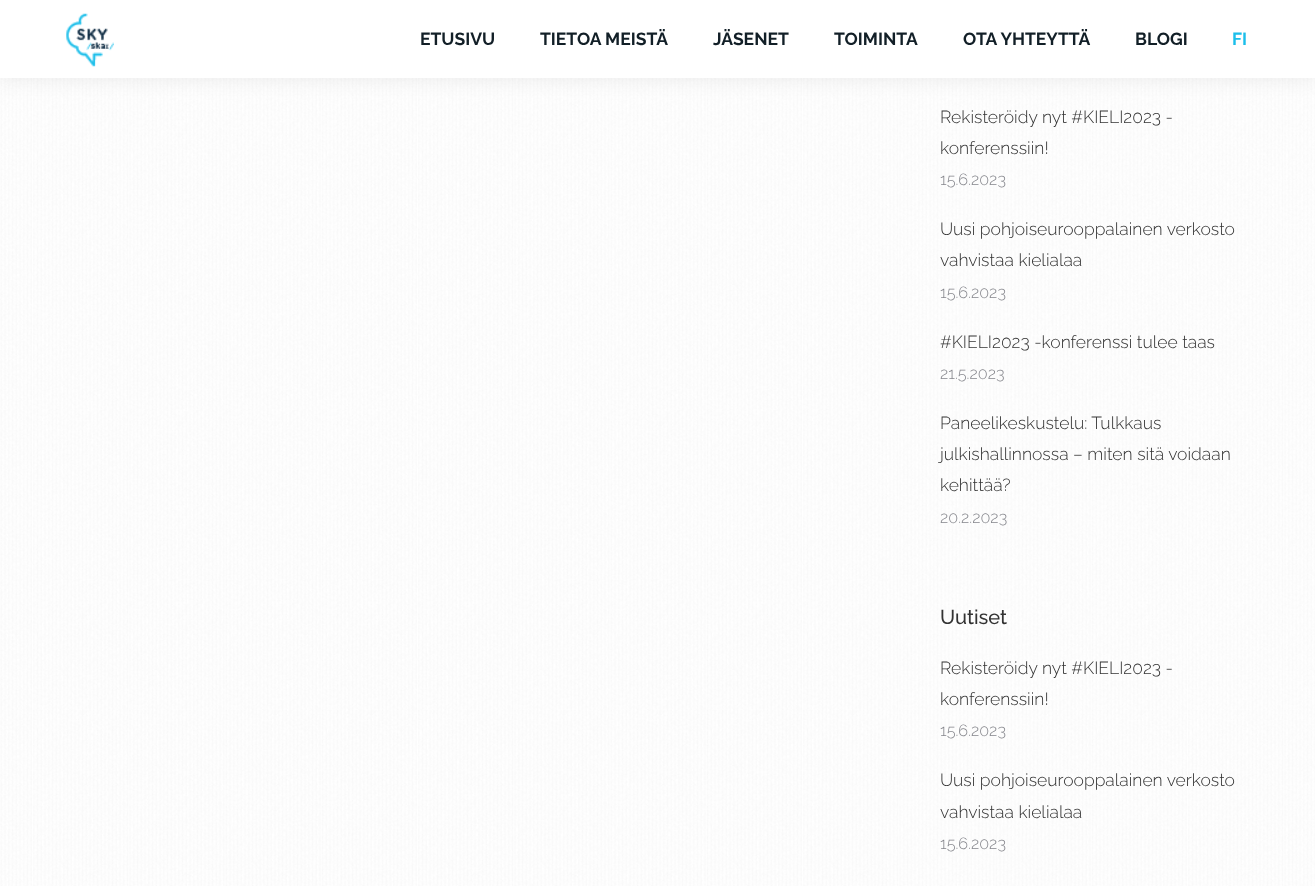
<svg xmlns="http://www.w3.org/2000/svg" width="1315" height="886">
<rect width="100%" height="100%" fill="#fff"/>
<image x="0" y="78" width="1315" height="808" href="media/2.png"/>
<rect x="-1" y="-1" width="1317" height="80" fill="#00000012" filter="blur(9.5px)"/>
<rect width="1315" height="78" fill="#fff"/>
<image x="66" y="13" width="48" height="54" href="media/1.png"/>
<text x="420" y="45" style="font-family:Raleway;font-size:17.5px;font-weight:bold;fill:#121f27">ETUSIVU</text>
<text x="540" y="45" style="font-family:Raleway;font-size:17.5px;font-weight:bold;fill:#121f27">TIETOA MEISTÄ</text>
<text x="713" y="45" style="font-family:Raleway;font-size:17.5px;font-weight:bold;fill:#121f27">JÄSENET</text>
<text x="834" y="45" style="font-family:Raleway;font-size:17.5px;font-weight:bold;fill:#121f27">TOIMINTA</text>
<text x="963" y="45" style="font-family:Raleway;font-size:17.5px;font-weight:bold;fill:#121f27">OTA YHTEYTTÄ</text>
<text x="1135" y="45" style="font-family:Raleway;font-size:17.5px;font-weight:bold;fill:#121f27">BLOGI</text>
<text x="1232" y="45" style="font-family:Raleway;font-size:17.5px;font-weight:bold;fill:#1bbeea">FI</text>
<text x="940" y="123" style="font-family:Raleway;font-size:17.5px;font-weight:300;fill:#333">Rekisteröidy nyt #KIELI2023 -</text>
<text x="940" y="154" style="font-family:Raleway;font-size:17.5px;font-weight:300;fill:#333">konferenssiin!</text>
<text x="940" y="185" style="font-family:Raleway;font-size:16.25px;font-weight:300;fill:#85868c">15.6.2023</text>
<text x="940" y="235" style="font-family:Raleway;font-size:17.5px;font-weight:300;fill:#333">Uusi pohjoiseurooppalainen verkosto</text>
<text x="940" y="266" style="font-family:Raleway;font-size:17.5px;font-weight:300;fill:#333">vahvistaa kielialaa</text>
<text x="940" y="298" style="font-family:Raleway;font-size:16.25px;font-weight:300;fill:#85868c">15.6.2023</text>
<text x="940" y="348" style="font-family:Raleway;font-size:17.5px;font-weight:300;fill:#333">#KIELI2023 -konferenssi tulee taas</text>
<text x="940" y="379" style="font-family:Raleway;font-size:16.25px;font-weight:300;fill:#85868c">21.5.2023</text>
<text x="940" y="429" style="font-family:Raleway;font-size:17.5px;font-weight:300;fill:#333">Paneelikeskustelu: Tulkkaus</text>
<text x="940" y="460" style="font-family:Raleway;font-size:17.5px;font-weight:300;fill:#333">julkishallinnossa – miten sitä voidaan</text>
<text x="940" y="491" style="font-family:Raleway;font-size:17.5px;font-weight:300;fill:#333">kehittää?</text>
<text x="940" y="523" style="font-family:Raleway;font-size:16.25px;font-weight:300;fill:#85868c">20.2.2023</text>
<text x="940" y="624" style="font-family:Raleway;font-size:20px;font-weight:500;fill:#333">Uutiset</text>
<text x="940" y="674" style="font-family:Raleway;font-size:17.5px;font-weight:300;fill:#333">Rekisteröidy nyt #KIELI2023 -</text>
<text x="940" y="705" style="font-family:Raleway;font-size:17.5px;font-weight:300;fill:#333">konferenssiin!</text>
<text x="940" y="736" style="font-family:Raleway;font-size:16.25px;font-weight:300;fill:#85868c">15.6.2023</text>
<text x="940" y="786" style="font-family:Raleway;font-size:17.5px;font-weight:300;fill:#333">Uusi pohjoiseurooppalainen verkosto</text>
<text x="940" y="818" style="font-family:Raleway;font-size:17.5px;font-weight:300;fill:#333">vahvistaa kielialaa</text>
<text x="940" y="849" style="font-family:Raleway;font-size:16.25px;font-weight:300;fill:#85868c">15.6.2023</text>
</svg>
